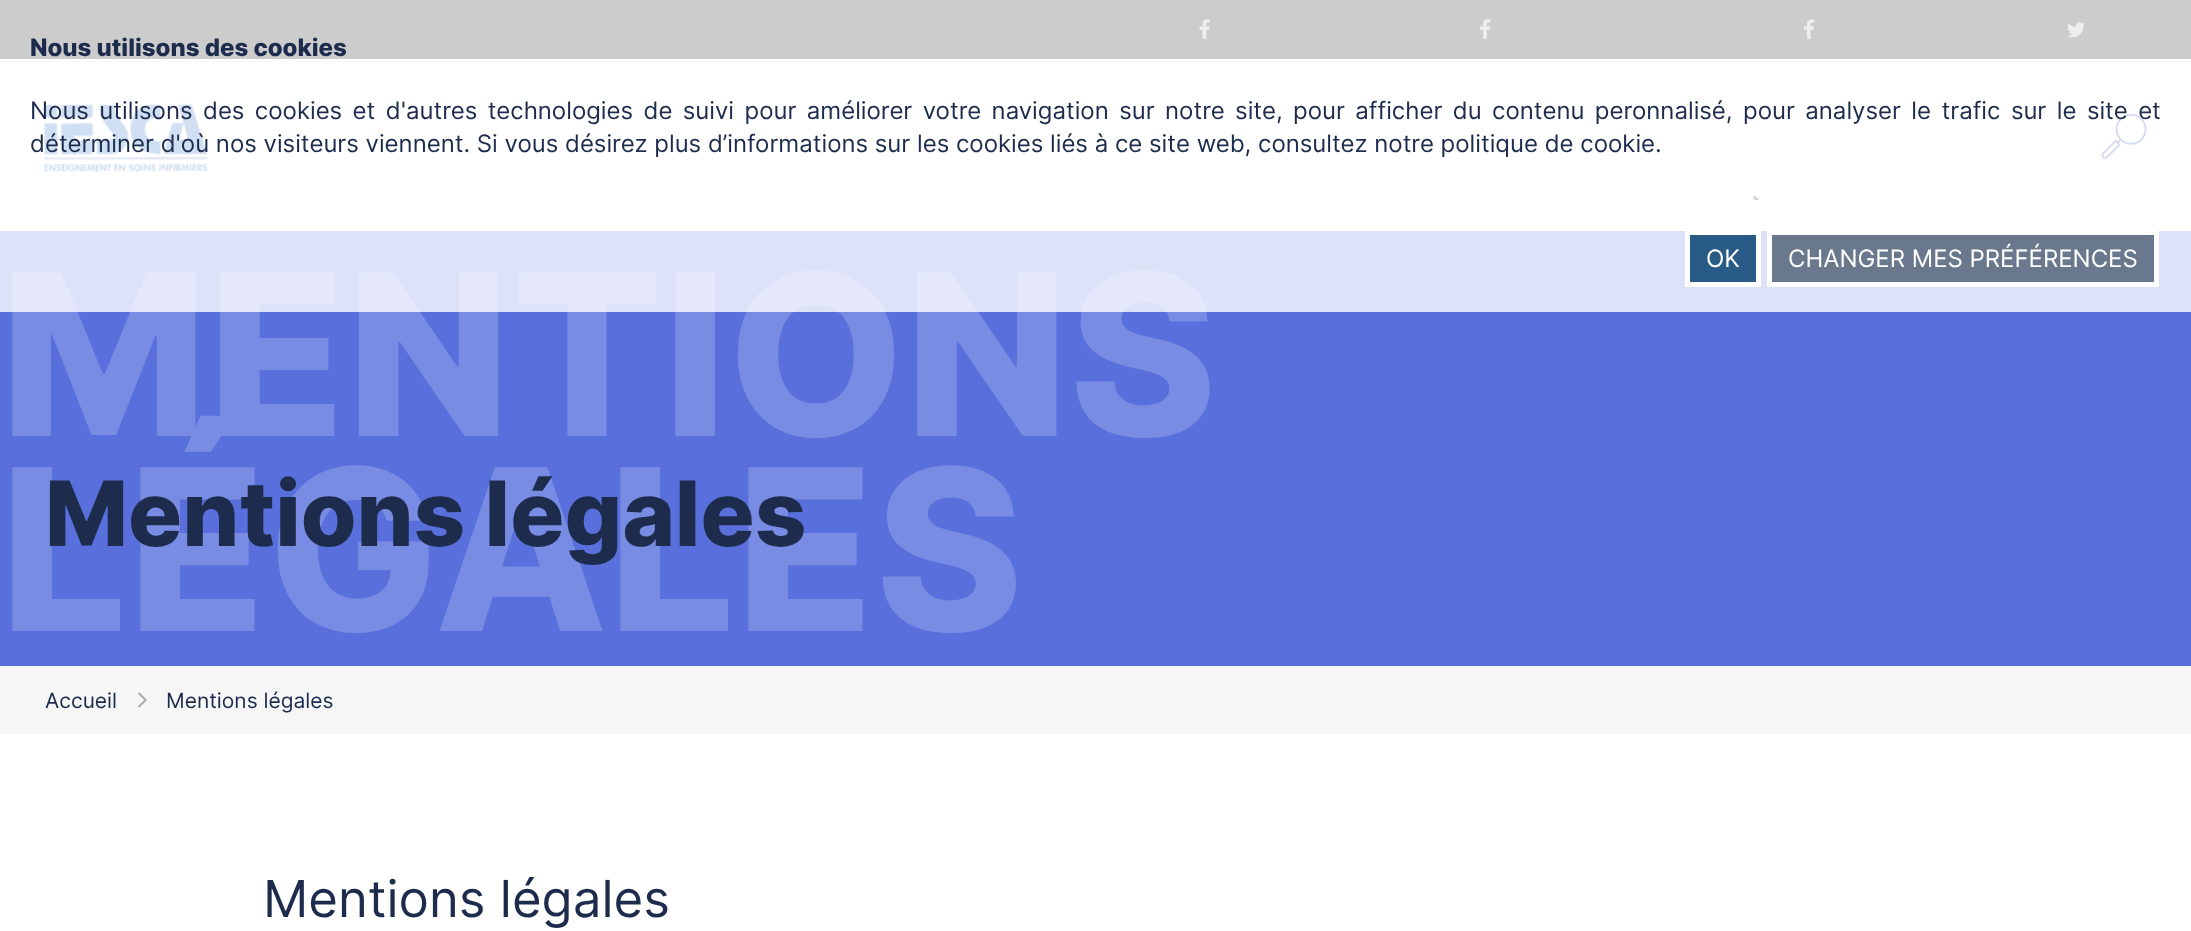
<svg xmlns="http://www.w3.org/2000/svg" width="2191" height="931">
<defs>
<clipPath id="clip1"><rect x="1505" y="185" width="300" height="15"/></clipPath>
</defs>
<rect width="100%" height="100%" fill="#fff"/>
<rect width="2191" height="59" fill="#000"/>
<image x="1199" y="19" width="11" height="20" href="media/1.png"/>
<image x="1480" y="19" width="11" height="20" href="media/2.png"/>
<image x="1804" y="19" width="11" height="20" href="media/2.png"/>
<image x="2067" y="22" width="18" height="16" href="media/3.png"/>
<image x="43" y="103" width="165" height="70" href="media/4.png"/>
<image x="2101" y="113" width="46" height="46" href="media/5.png"/>
<g clip-path="url(#clip1)">
<path d="M1755 195.5l18 18l-2 2l-18.5-18z" fill="#1d2c4d"/>
</g>
<rect y="231" width="2191" height="435" fill="#586fdc"/>
<text x="0" y="436" style="font-family:Inter;font-size:225px;font-weight:800;fill:#798ce3">MENTIONS</text>
<rect width="2191" height="312" fill="#ffffffcc"/>
<text x="30" y="56" style="font-family:Inter;font-size:24px;font-weight:800;fill:#1d2c4d">Nous utilisons des cookies</text>
<text x="30" y="119" word-spacing="3.7" style="font-family:Inter;font-size:24px;fill:#1d2c4d">Nous utilisons des cookies et d'autres technologies de suivi pour améliorer votre navigation sur notre site, pour afficher du contenu peronnalisé, pour analyser le trafic sur le site et</text>
<text x="30" y="152" style="font-family:Inter;font-size:24px;fill:#1d2c4d">déterminer d'où nos visiteurs viennent. Si vous désirez plus d’informations sur les cookies liés à ce site web, consultez notre politique de cookie.</text>
<rect x="1690" y="235" width="66" height="47" fill="#285b86"/>
<rect x="1687.5" y="232.5" width="71" height="52" fill="none" stroke="#fff" stroke-width="5"/>
<text x="1706" y="267" style="font-family:Inter;font-size:24px;fill:#fff">OK</text>
<rect x="1772" y="235" width="382" height="47" fill="#69788c"/>
<rect x="1769.5" y="232.5" width="387" height="52" fill="none" stroke="#fff" stroke-width="5"/>
<text x="1788" y="267" style="font-family:Inter;font-size:24px;fill:#fff">CHANGER MES PRÉFÉRENCES</text>
<text x="0" y="631" style="font-family:Inter;font-size:225px;font-weight:800;fill:#798ce3">LÉGALES</text>
<text x="45" y="546" style="font-family:Inter;font-size:90px;font-weight:800;fill:#1d2c4d">Mentions légales</text>
<rect y="666" width="2191" height="68" fill="#f6f6f6"/>
<text x="45" y="708" style="font-family:Inter;font-size:21px;fill:#1d2c4d">Accueil</text>
<image x="138" y="692" width="9" height="16" href="media/6.png"/>
<text x="166" y="708" style="font-family:Inter;font-size:21px;fill:#1d2c4d">Mentions légales</text>
<text x="263" y="917" style="font-family:Inter;font-size:51px;fill:#1d2c4d">Mentions légales</text>
</svg>
